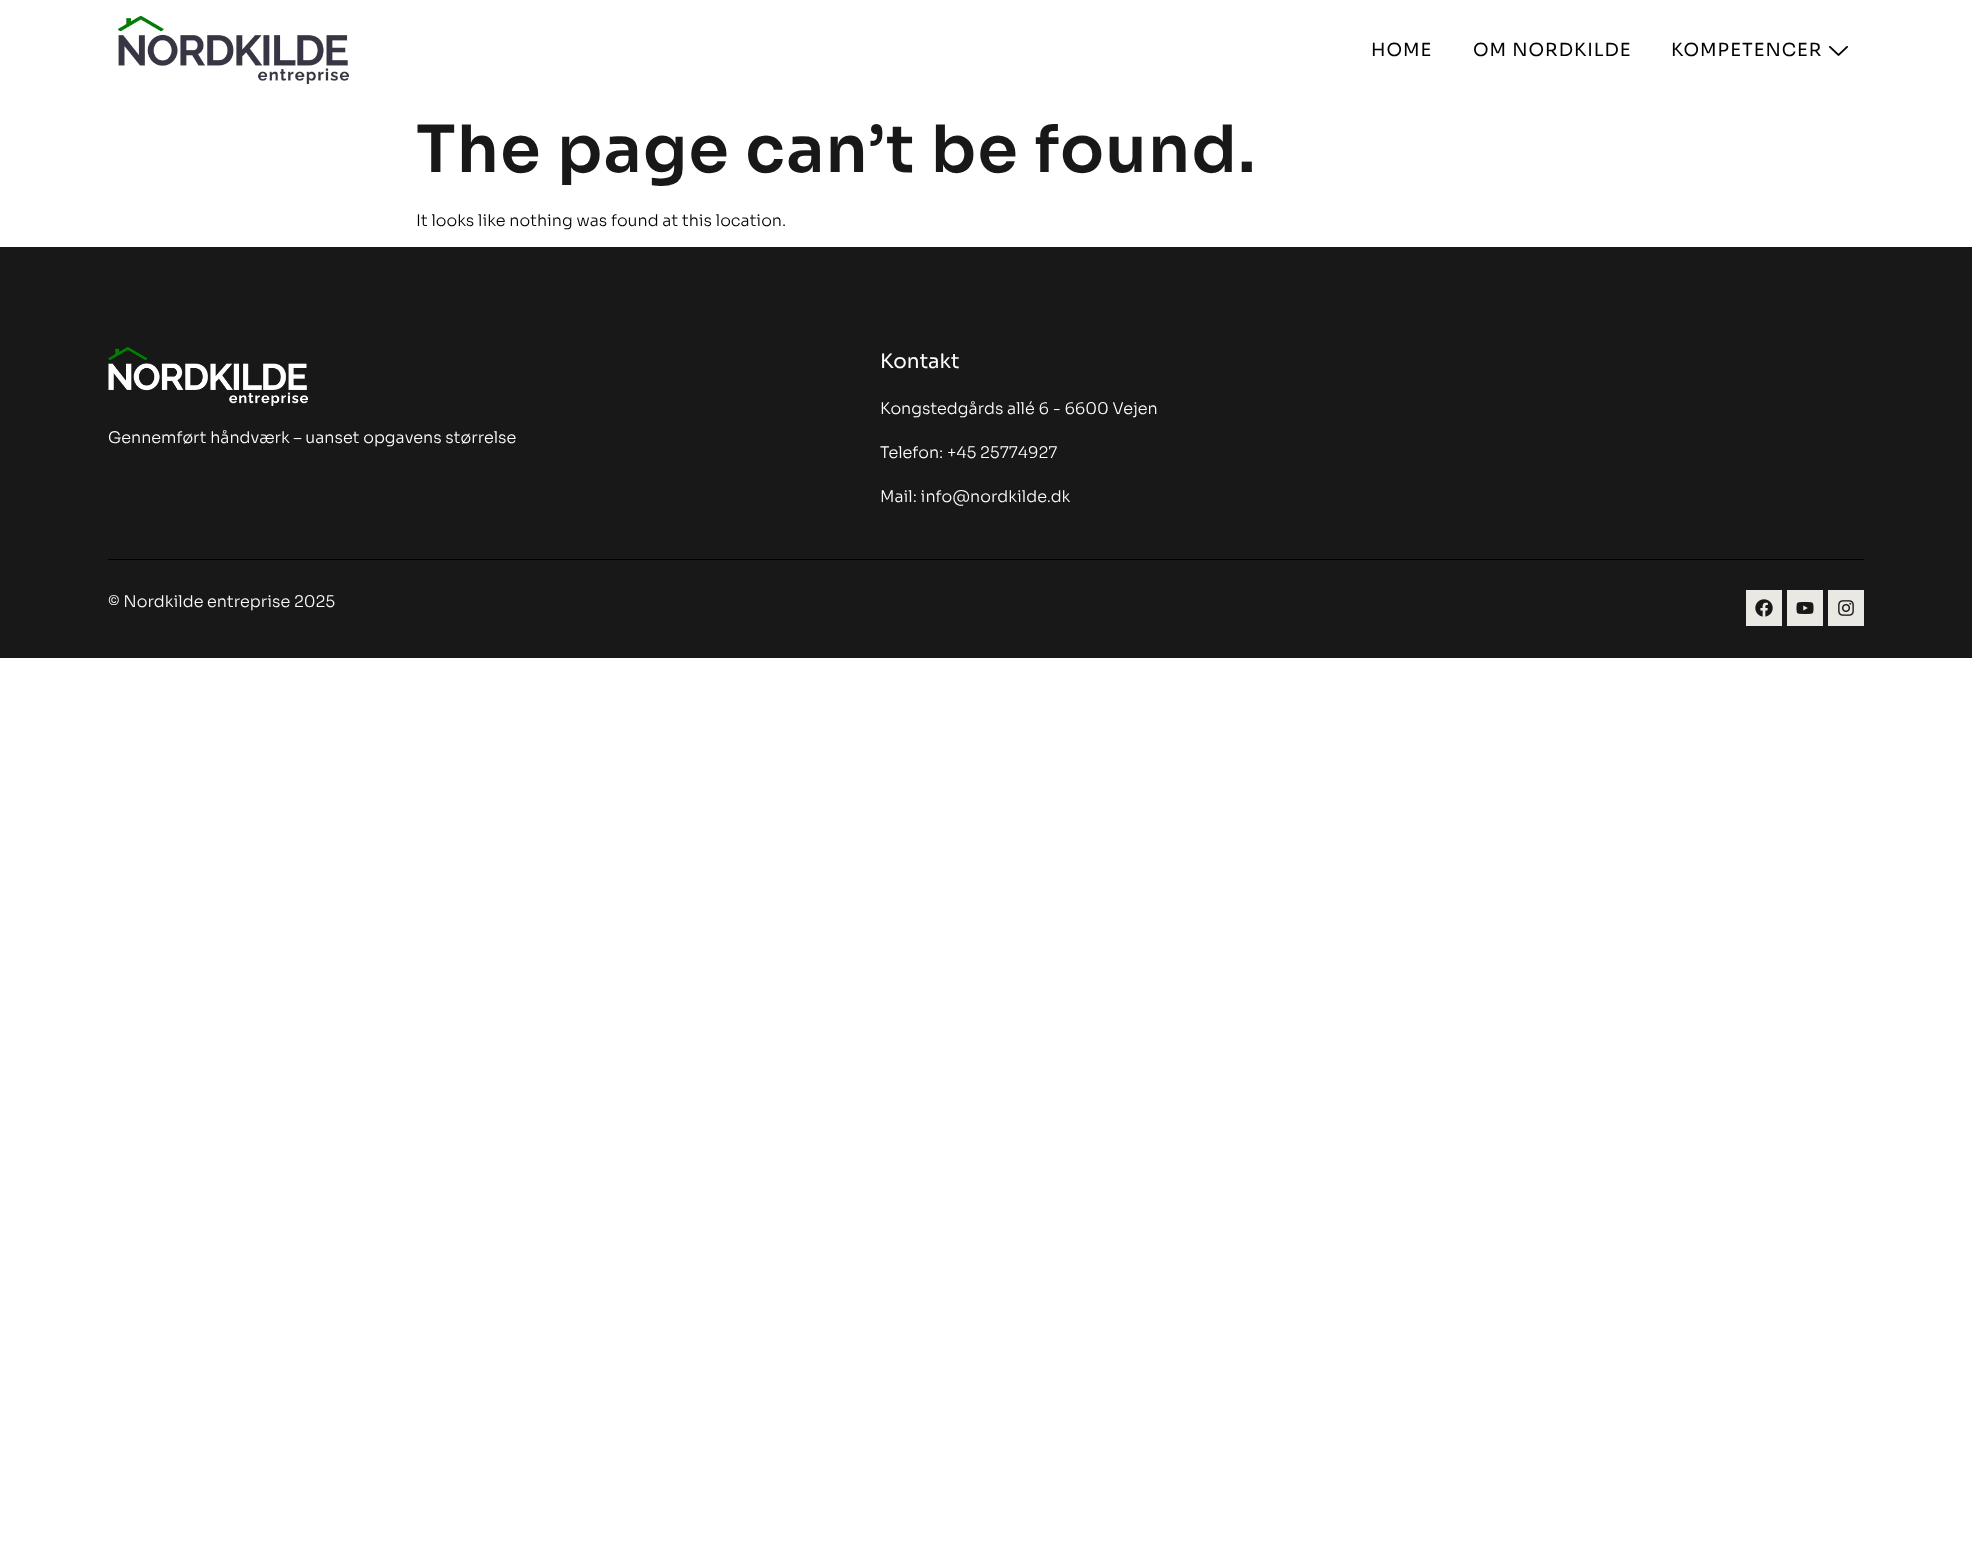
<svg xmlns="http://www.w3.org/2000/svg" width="1972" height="1542">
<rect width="100%" height="100%" fill="#fff"/>
<image x="118" y="16" width="231" height="68" href="media/1.png"/>
<text x="1371" y="56" style="font-family:Sora;font-size:18px;letter-spacing:1px;fill:#020101">HOME</text>
<text x="1473" y="56" style="font-family:Sora;font-size:18px;letter-spacing:1px;fill:#020101">OM NORDKILDE</text>
<text x="1671" y="56" style="font-family:Sora;font-size:18px;letter-spacing:1px;fill:#020101">KOMPETENCER</text>
<image x="1829" y="46" width="19" height="10" href="media/2.png"/>
<text x="416" y="172" style="font-family:Sora;font-size:65px;font-weight:600;letter-spacing:1.2px;fill:#181818">The page can’t be found.</text>
<text x="416" y="226" style="font-family:Sora;font-size:16px;font-weight:300;fill:#020101">It looks like nothing was found at this location.</text>
<rect y="247" width="1972" height="411" fill="#181818"/>
<image x="108" y="347" width="200" height="59" href="media/3.png"/>
<text x="108" y="443" style="font-family:Sora;font-size:16px;font-weight:300;fill:#fff">Gennemført håndværk – uanset opgavens størrelse</text>
<text x="880" y="368" style="font-family:Sora;font-size:20px;fill:#fff">Kontakt</text>
<text x="880" y="414" style="font-family:Sora;font-size:16px;font-weight:300;fill:#fff">Kongstedgårds allé 6 - 6600 Vejen</text>
<text x="880" y="458" style="font-family:Sora;font-size:16px;font-weight:300;fill:#fff">Telefon: +45 25774927</text>
<text x="880" y="502" style="font-family:Sora;font-size:16px;font-weight:300;fill:#fff">Mail: info@nordkilde.dk</text>
<rect x="108" y="559" width="1756" height="1" fill="#020101"/>
<text x="108" y="607" style="font-family:Sora;font-size:16px;font-weight:300;fill:#fff">© Nordkilde entreprise 2025</text>
<rect x="1746" y="590" width="36" height="36" fill="#eae8e3"/>
<image x="1755" y="599" width="18" height="18" href="media/4.png"/>
<rect x="1787" y="590" width="36" height="36" fill="#eae8e3"/>
<image x="1796" y="602" width="18" height="12" href="media/5.png"/>
<rect x="1828" y="590" width="36" height="36" fill="#eae8e3"/>
<image x="1838" y="600" width="16" height="16" href="media/6.png"/>
</svg>
